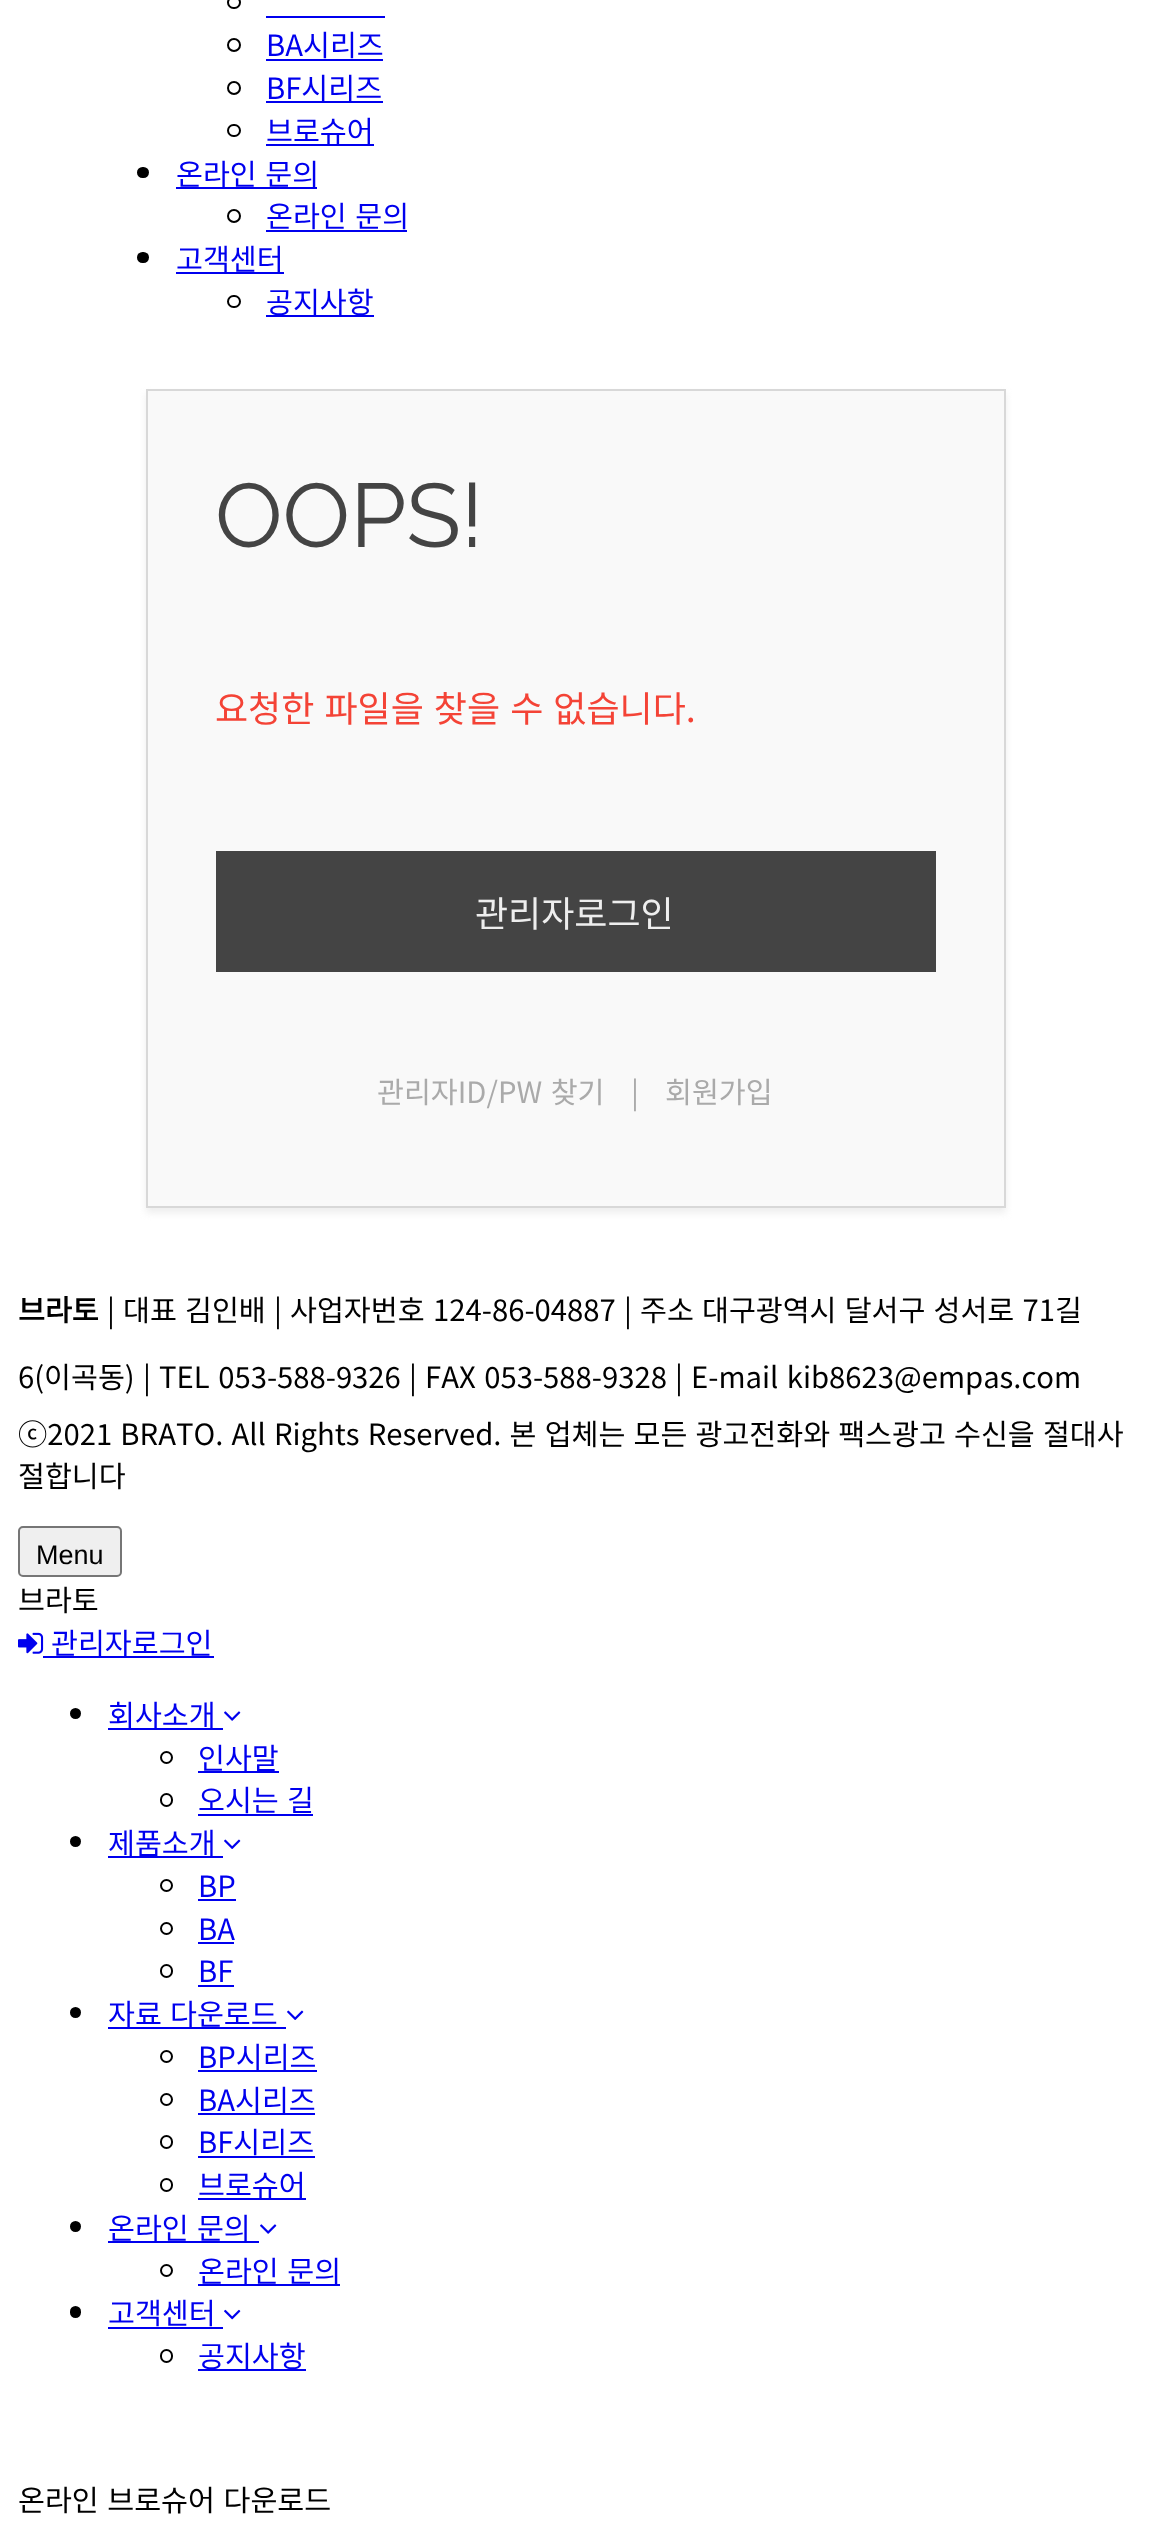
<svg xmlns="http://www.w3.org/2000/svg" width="1149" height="2548">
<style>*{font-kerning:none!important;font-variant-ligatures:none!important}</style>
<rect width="100%" height="100%" fill="#fff"/>
<rect x="228" y="-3" width="12" height="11" rx="5.5" fill="none" stroke="#000" stroke-width="2"/>
<rect x="266" y="16" width="119" height="2" fill="#00e"/>
<circle cx="234" cy="45" r="6" fill="none" stroke="#000" stroke-width="2"/>
<text x="266" y="56" style="font-family:Noto Sans KR;font-size:29.25px;font-weight:100;fill:#00e">BA시리즈</text>
<rect x="266" y="59" width="117" height="2" fill="#00e"/>
<circle cx="234" cy="88" r="6" fill="none" stroke="#000" stroke-width="2"/>
<rect x="266" y="101" width="117" height="2" fill="#00e"/>
<text x="266" y="99" style="font-family:Noto Sans KR;font-size:29.25px;font-weight:100;fill:#00e">BF시리즈</text>
<rect x="228" y="125" width="12" height="11" rx="5.5" fill="none" stroke="#000" stroke-width="2"/>
<rect x="266" y="144" width="108" height="2" fill="#00e"/>
<text x="266" y="142" style="font-family:Noto Sans KR;font-size:29.25px;font-weight:100;fill:#00e">브로슈어</text>
<rect x="137" y="167" width="12" height="11" rx="5.5" fill="#000"/>
<rect x="176" y="187" width="141" height="2" fill="#00e"/>
<text x="176" y="185" word-spacing="2" style="font-family:Noto Sans KR;font-size:29.25px;font-weight:100;fill:#00e">온라인 문의</text>
<circle cx="234" cy="216" r="6" fill="none" stroke="#000" stroke-width="2"/>
<text x="266" y="227" word-spacing="2" style="font-family:Noto Sans KR;font-size:29.25px;font-weight:100;fill:#00e">온라인 문의</text>
<rect x="266" y="230" width="141" height="2" fill="#00e"/>
<rect x="137" y="252" width="12" height="11" rx="5.5" fill="#000"/>
<rect x="176" y="272" width="108" height="2" fill="#00e"/>
<text x="176" y="270" style="font-family:Noto Sans KR;font-size:29.25px;font-weight:100;fill:#00e">고객센터</text>
<rect x="228" y="296" width="12" height="11" rx="5.5" fill="none" stroke="#000" stroke-width="2"/>
<rect x="266" y="315" width="108" height="2" fill="#00e"/>
<text x="266" y="313" style="font-family:Noto Sans KR;font-size:29.25px;font-weight:100;fill:#00e">공지사항</text>
<rect x="146" y="394" width="860" height="819" fill="#eee" filter="blur(3.5px)"/>
<rect x="147" y="390" width="858" height="817" fill="#f9f9f9" stroke="#d8d8d8" stroke-width="2"/>
<text x="215" y="547" style="font-family:Raleway;font-size:90px;fill:#444">OOPS!</text>
<text x="215" y="722" word-spacing="2" style="font-family:Noto Sans KR;font-size:36px;font-weight:100;fill:#f44336">요청한 파일을 찾을 수 없습니다.</text>
<rect x="216" y="851" width="720" height="121" fill="#444"/>
<text x="475" y="927" style="font-family:Noto Sans KR;font-size:36px;font-weight:100;fill:#eee">관리자로그인</text>
<text x="377" y="1103" word-spacing="2" style="font-family:Noto Sans KR;font-size:29.25px;font-weight:100;fill:#aaa">관리자ID/PW 찾기</text>
<text x="631" y="1103" style="font-family:Noto Sans KR;font-size:29.25px;font-weight:100;fill:#aaa">|</text>
<text x="665" y="1103" style="font-family:Noto Sans KR;font-size:29.25px;font-weight:100;fill:#aaa">회원가입</text>
<text x="18" y="1321" style="font-family:Noto Sans KR;font-size:29.25px;font-weight:bold;fill:#000">브라토</text>
<text x="107" y="1321" style="font-family:Noto Sans KR;font-size:29.25px;font-weight:100;fill:#000">|</text>
<text x="123" y="1321" word-spacing="1.6" style="font-family:Noto Sans KR;font-size:29.25px;font-weight:100;fill:#000">대표 김인배</text>
<text x="274" y="1321" style="font-family:Noto Sans KR;font-size:29.25px;font-weight:100;fill:#000">|</text>
<text x="290" y="1321" word-spacing="2" style="font-family:Noto Sans KR;font-size:29.25px;font-weight:100;fill:#000">사업자번호 124-86-04887</text>
<text x="624" y="1321" style="font-family:Noto Sans KR;font-size:29.25px;font-weight:100;fill:#000">|</text>
<text x="640" y="1321" word-spacing="1.6" style="font-family:Noto Sans KR;font-size:29.25px;font-weight:100;fill:#000">주소 대구광역시 달서구 성서로 71길</text>
<text x="18" y="1388" style="font-family:Noto Sans KR;font-size:29.25px;font-weight:100;fill:#000">6(이곡동)</text>
<text x="143" y="1388" style="font-family:Noto Sans KR;font-size:29.25px;font-weight:100;fill:#000">|</text>
<text x="159" y="1388" word-spacing="2" style="font-family:Noto Sans KR;font-size:29.25px;font-weight:100;fill:#000">TEL 053-588-9326</text>
<text x="409" y="1388" style="font-family:Noto Sans KR;font-size:29.25px;font-weight:100;fill:#000">|</text>
<text x="425" y="1388" word-spacing="2" style="font-family:Noto Sans KR;font-size:29.25px;font-weight:100;fill:#000">FAX 053-588-9328</text>
<text x="675" y="1388" style="font-family:Noto Sans KR;font-size:29.25px;font-weight:100;fill:#000">|</text>
<text x="691" y="1388" word-spacing="2" style="font-family:Noto Sans KR;font-size:29.25px;font-weight:100;fill:#000">E-mail kib8623@empas.com</text>
<text x="18" y="1445" word-spacing="1.6" style="font-family:Noto Sans KR;font-size:29.25px;font-weight:100;fill:#000">ⓒ2021 BRATO. All Rights Reserved. 본 업체는 모든 광고전화와 팩스광고 수신을 절대사</text>
<text x="18" y="1487" style="font-family:Noto Sans KR;font-size:29.25px;font-weight:100;fill:#000">절합니다</text>
<rect x="19" y="1527" width="102" height="49" rx="4" fill="#efefef" stroke="#767676" stroke-width="2"/>
<text x="36" y="1564" style="font-family:Liberation Sans;font-size:27px;fill:#000">Menu</text>
<text x="18" y="1611" style="font-family:Noto Sans KR;font-size:29.25px;font-weight:100;fill:#000">브라토</text>
<image x="18" y="1632" width="26" height="22" href="media/1.png"/>
<rect x="43" y="1656" width="171" height="2" fill="#00e"/>
<text x="51" y="1654" style="font-family:Noto Sans KR;font-size:29.25px;font-weight:100;fill:#00e">관리자로그인</text>
<circle cx="75.5" cy="1713.5" r="5.5" fill="#000"/>
<rect x="108" y="1728" width="115" height="2" fill="#00e"/>
<text x="108" y="1726" style="font-family:Noto Sans KR;font-size:29.25px;font-weight:100;fill:#00e">회사소개</text>
<image x="224" y="1711" width="17" height="10" href="media/2.png"/>
<circle cx="166.5" cy="1757.5" r="5.5" fill="none" stroke="#000" stroke-width="2"/>
<rect x="198" y="1771" width="81" height="2" fill="#00e"/>
<text x="198" y="1769" style="font-family:Noto Sans KR;font-size:29.25px;font-weight:100;fill:#00e">인사말</text>
<rect x="161" y="1794" width="11" height="12" rx="5.5" fill="none" stroke="#000" stroke-width="2"/>
<text x="198" y="1811" word-spacing="1.6" style="font-family:Noto Sans KR;font-size:29.25px;font-weight:100;fill:#00e">오시는 길</text>
<rect x="198" y="1814" width="115" height="2" fill="#00e"/>
<circle cx="75.5" cy="1841.5" r="5.5" fill="#000"/>
<rect x="108" y="1856" width="115" height="2" fill="#00e"/>
<text x="108" y="1854" style="font-family:Noto Sans KR;font-size:29.25px;font-weight:100;fill:#00e">제품소개</text>
<image x="224" y="1839" width="17" height="10" href="media/3.png"/>
<circle cx="166.5" cy="1885.5" r="5.5" fill="none" stroke="#000" stroke-width="2"/>
<text x="198" y="1897" style="font-family:Noto Sans KR;font-size:29.25px;font-weight:100;fill:#00e">BP</text>
<rect x="198" y="1899" width="38" height="2" fill="#00e"/>
<circle cx="166.5" cy="1928.5" r="5.5" fill="none" stroke="#000" stroke-width="2"/>
<text x="198" y="1940" style="font-family:Noto Sans KR;font-size:29.25px;font-weight:100;fill:#00e">BA</text>
<rect x="198" y="1942" width="36" height="2" fill="#00e"/>
<rect x="161" y="1965" width="11" height="12" rx="5.5" fill="none" stroke="#000" stroke-width="2"/>
<text x="198" y="1982" style="font-family:Noto Sans KR;font-size:29.25px;font-weight:100;fill:#00e">BF</text>
<rect x="198" y="1985" width="36" height="2" fill="#00e"/>
<circle cx="75.5" cy="2012.5" r="5.5" fill="#000"/>
<rect x="108" y="2027" width="178" height="2" fill="#00e"/>
<text x="108" y="2025" word-spacing="1.6" style="font-family:Noto Sans KR;font-size:29.25px;font-weight:100;fill:#00e">자료 다운로드</text>
<image x="287" y="2010" width="17" height="10" href="media/3.png"/>
<circle cx="166.5" cy="2056.5" r="5.5" fill="none" stroke="#000" stroke-width="2"/>
<rect x="198" y="2070" width="119" height="2" fill="#00e"/>
<text x="198" y="2068" style="font-family:Noto Sans KR;font-size:29.25px;font-weight:100;fill:#00e">BP시리즈</text>
<circle cx="166.5" cy="2099.5" r="5.5" fill="none" stroke="#000" stroke-width="2"/>
<rect x="198" y="2113" width="117" height="2" fill="#00e"/>
<text x="198" y="2111" style="font-family:Noto Sans KR;font-size:29.25px;font-weight:100;fill:#00e">BA시리즈</text>
<rect x="161" y="2136" width="11" height="12" rx="5.5" fill="none" stroke="#000" stroke-width="2"/>
<text x="198" y="2153" style="font-family:Noto Sans KR;font-size:29.25px;font-weight:100;fill:#00e">BF시리즈</text>
<rect x="198" y="2156" width="117" height="2" fill="#00e"/>
<rect x="161" y="2179" width="11" height="12" rx="5.5" fill="none" stroke="#000" stroke-width="2"/>
<rect x="198" y="2198" width="108" height="2" fill="#00e"/>
<text x="198" y="2196" style="font-family:Noto Sans KR;font-size:29.25px;font-weight:100;fill:#00e">브로슈어</text>
<circle cx="75.5" cy="2226.5" r="5.5" fill="#000"/>
<rect x="108" y="2241" width="151" height="2" fill="#00e"/>
<text x="108" y="2239" word-spacing="1.6" style="font-family:Noto Sans KR;font-size:29.25px;font-weight:100;fill:#00e">온라인 문의</text>
<image x="260" y="2224" width="17" height="10" href="media/2.png"/>
<circle cx="166.5" cy="2270.5" r="5.5" fill="none" stroke="#000" stroke-width="2"/>
<rect x="198" y="2284" width="142" height="2" fill="#00e"/>
<text x="198" y="2282" word-spacing="2" style="font-family:Noto Sans KR;font-size:29.25px;font-weight:100;fill:#00e">온라인 문의</text>
<rect x="70" y="2306" width="11" height="12" rx="5.5" fill="#000"/>
<text x="108" y="2324" style="font-family:Noto Sans KR;font-size:29.25px;font-weight:100;fill:#00e">고객센터</text>
<rect x="108" y="2327" width="115" height="2" fill="#00e"/>
<image x="224" y="2309" width="17" height="11" href="media/4.png"/>
<rect x="161" y="2350" width="11" height="12" rx="5.5" fill="none" stroke="#000" stroke-width="2"/>
<rect x="198" y="2369" width="108" height="2" fill="#00e"/>
<text x="198" y="2367" style="font-family:Noto Sans KR;font-size:29.25px;font-weight:100;fill:#00e">공지사항</text>
<text x="18" y="2511" word-spacing="2" style="font-family:Noto Sans KR;font-size:29.25px;font-weight:100;fill:#000">온라인 브로슈어 다운로드</text>
</svg>
